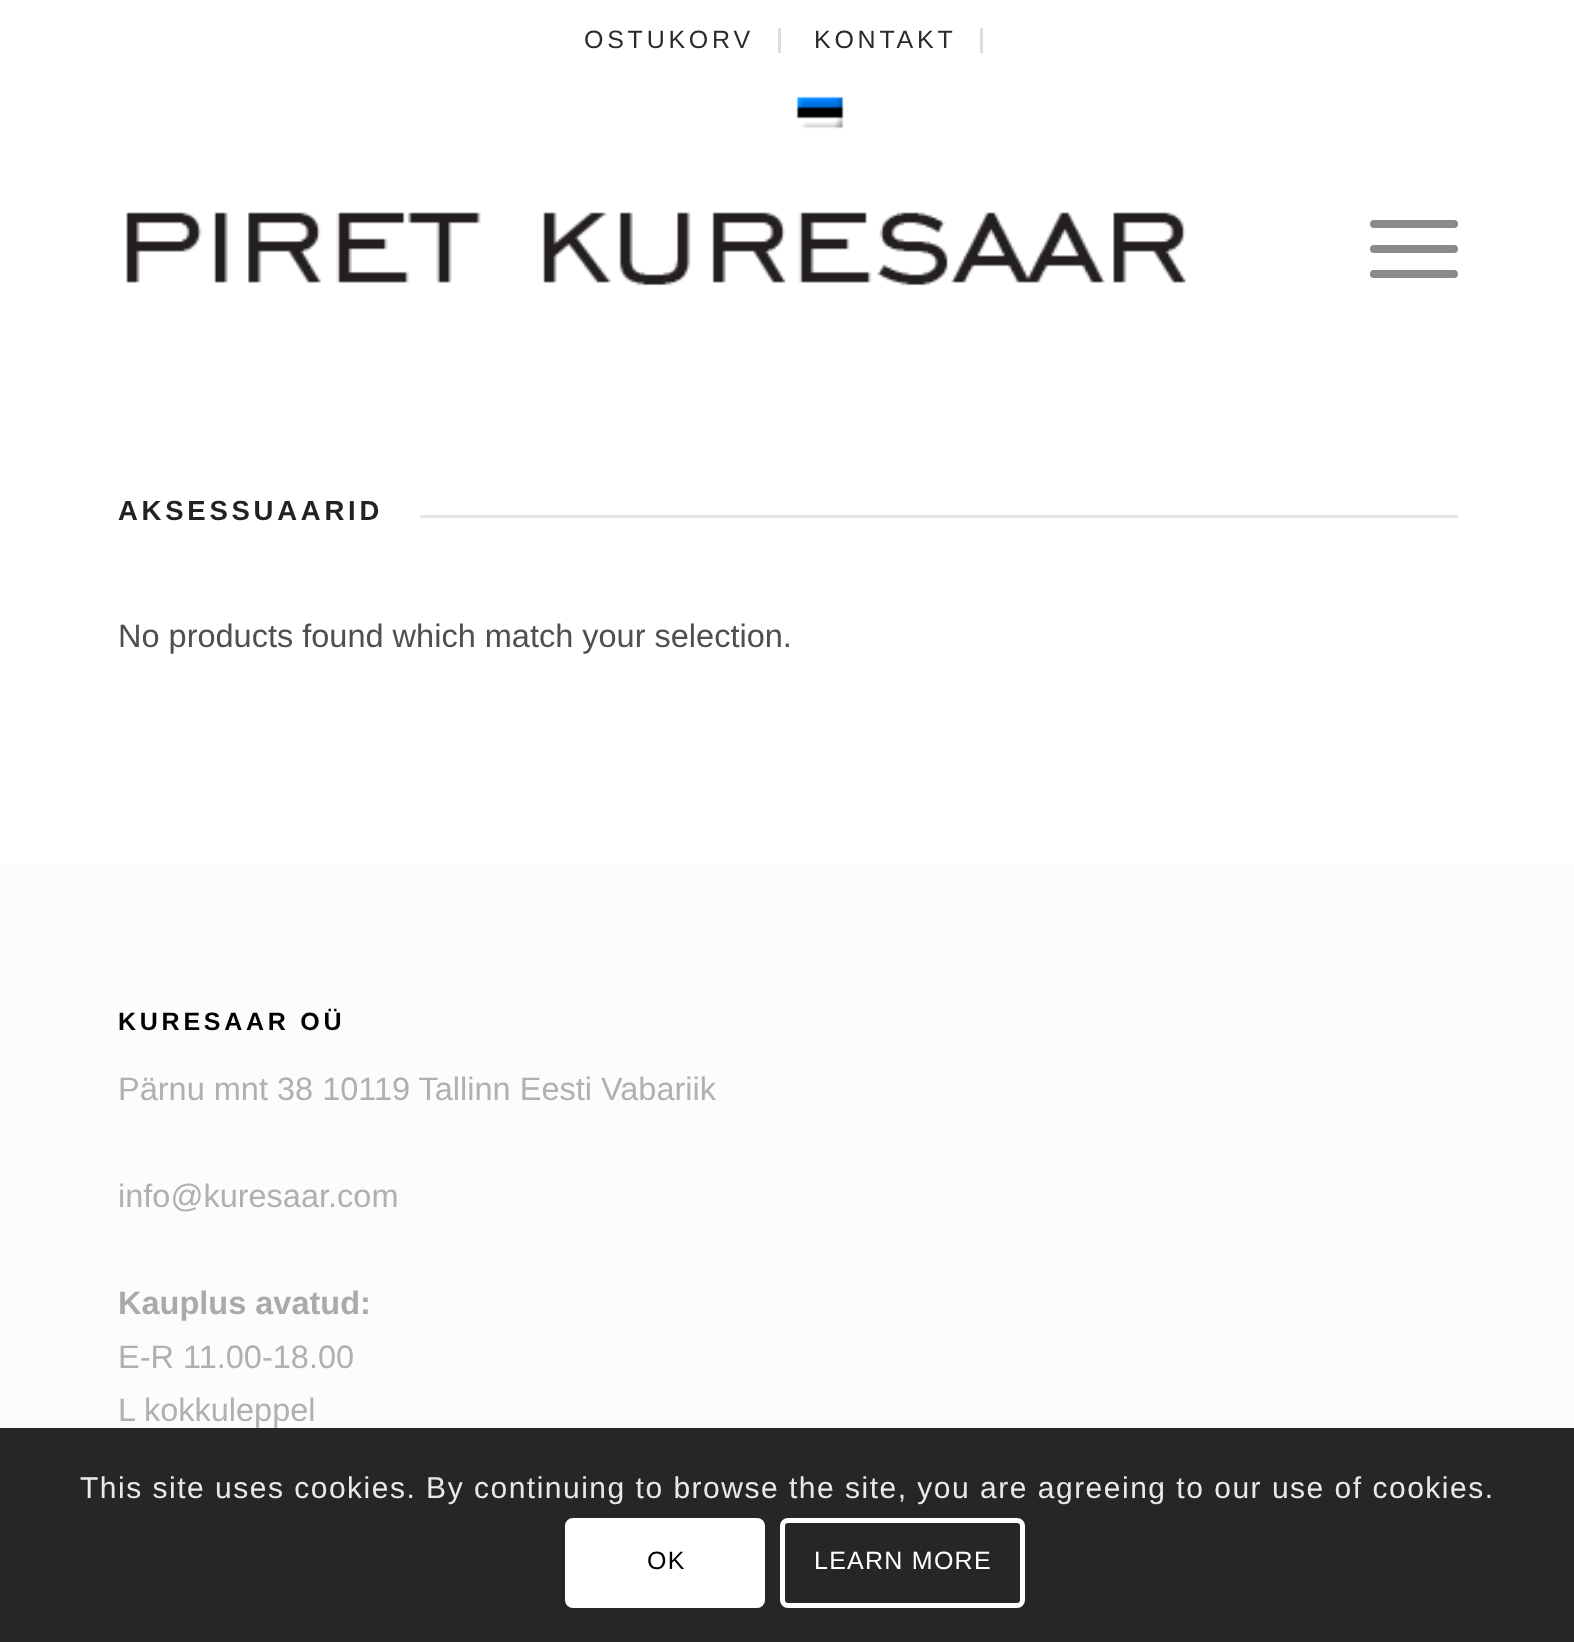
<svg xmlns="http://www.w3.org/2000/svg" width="1574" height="1642">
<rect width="100%" height="100%" fill="#fff"/>
<rect x="778" y="28" width="3" height="25" fill="#dedede"/>
<text x="584" y="48" style="font-family:Liberation Sans;font-size:25px;letter-spacing:3.75px;fill:#2b2b2b">OSTUKORV</text>
<rect x="980" y="28" width="3" height="25" fill="#dedede"/>
<text x="814" y="48" style="font-family:Liberation Sans;font-size:25px;letter-spacing:3.75px;fill:#2b2b2b">KONTAKT</text>
<image x="796" y="96" width="48" height="33" href="media/1.png"/>
<image x="126" y="212" width="1060" height="74" href="media/2.png"/>
<rect x="1370" y="245" width="88" height="8" rx="4" fill="#8a8a8a"/>
<rect x="1370" y="220" width="88" height="8" rx="4" fill="#8a8a8a"/>
<rect x="1370" y="270" width="88" height="8" rx="4" fill="#8a8a8a"/>
<text x="118" y="520" style="font-family:Liberation Sans;font-size:27.5px;font-weight:bold;letter-spacing:3.75px;fill:#222">AKSESSUAARID</text>
<rect x="420" y="515" width="1038" height="3" fill="#e5e5e5"/>
<text x="118" y="647" style="font-family:Liberation Sans;font-size:32.5px;fill:#4f4f4f">No products found which match your selection.</text>
<rect y="865" width="1574" height="563" fill="#fcfcfc"/>
<rect y="1428" width="1574" height="214" fill="#262626"/>
<text x="118" y="1030" style="font-family:Liberation Sans;font-size:25px;font-weight:bold;letter-spacing:3.75px;fill:#000">KURESAAR OÜ</text>
<text x="118" y="1100" style="font-family:Liberation Sans;font-size:32.5px;fill:#b0b0b0">Pärnu mnt 38 10119 Tallinn Eesti Vabariik</text>
<text x="118" y="1207" style="font-family:Liberation Sans;font-size:32.5px;fill:#b0b0b0">info@kuresaar.com</text>
<text x="118" y="1314" style="font-family:Liberation Sans;font-size:32.5px;font-weight:bold;fill:#aaa">Kauplus avatud:</text>
<text x="118" y="1368" style="font-family:Liberation Sans;font-size:32.5px;fill:#b0b0b0">E-R 11.00-18.00</text>
<text x="118" y="1421" style="font-family:Liberation Sans;font-size:32.5px;fill:#b0b0b0">L kokkuleppel</text>
<text x="80" y="1498" style="font-family:Liberation Sans;font-size:30px;letter-spacing:1.5px;fill:#e9e9e9">This site uses cookies. By continuing to browse the site, you are agreeing to our use of cookies.</text>
<rect x="565" y="1518" width="200" height="90" rx="8" fill="#fff"/>
<text x="647" y="1569" style="font-family:Liberation Sans;font-size:25px;letter-spacing:1.25px;fill:#000">OK</text>
<rect x="782.5" y="1520.5" width="240" height="85" rx="5.5" fill="none" stroke="#fff" stroke-width="5"/>
<text x="814" y="1569" style="font-family:Liberation Sans;font-size:25px;letter-spacing:1.25px;fill:#fff">LEARN MORE</text>
</svg>
